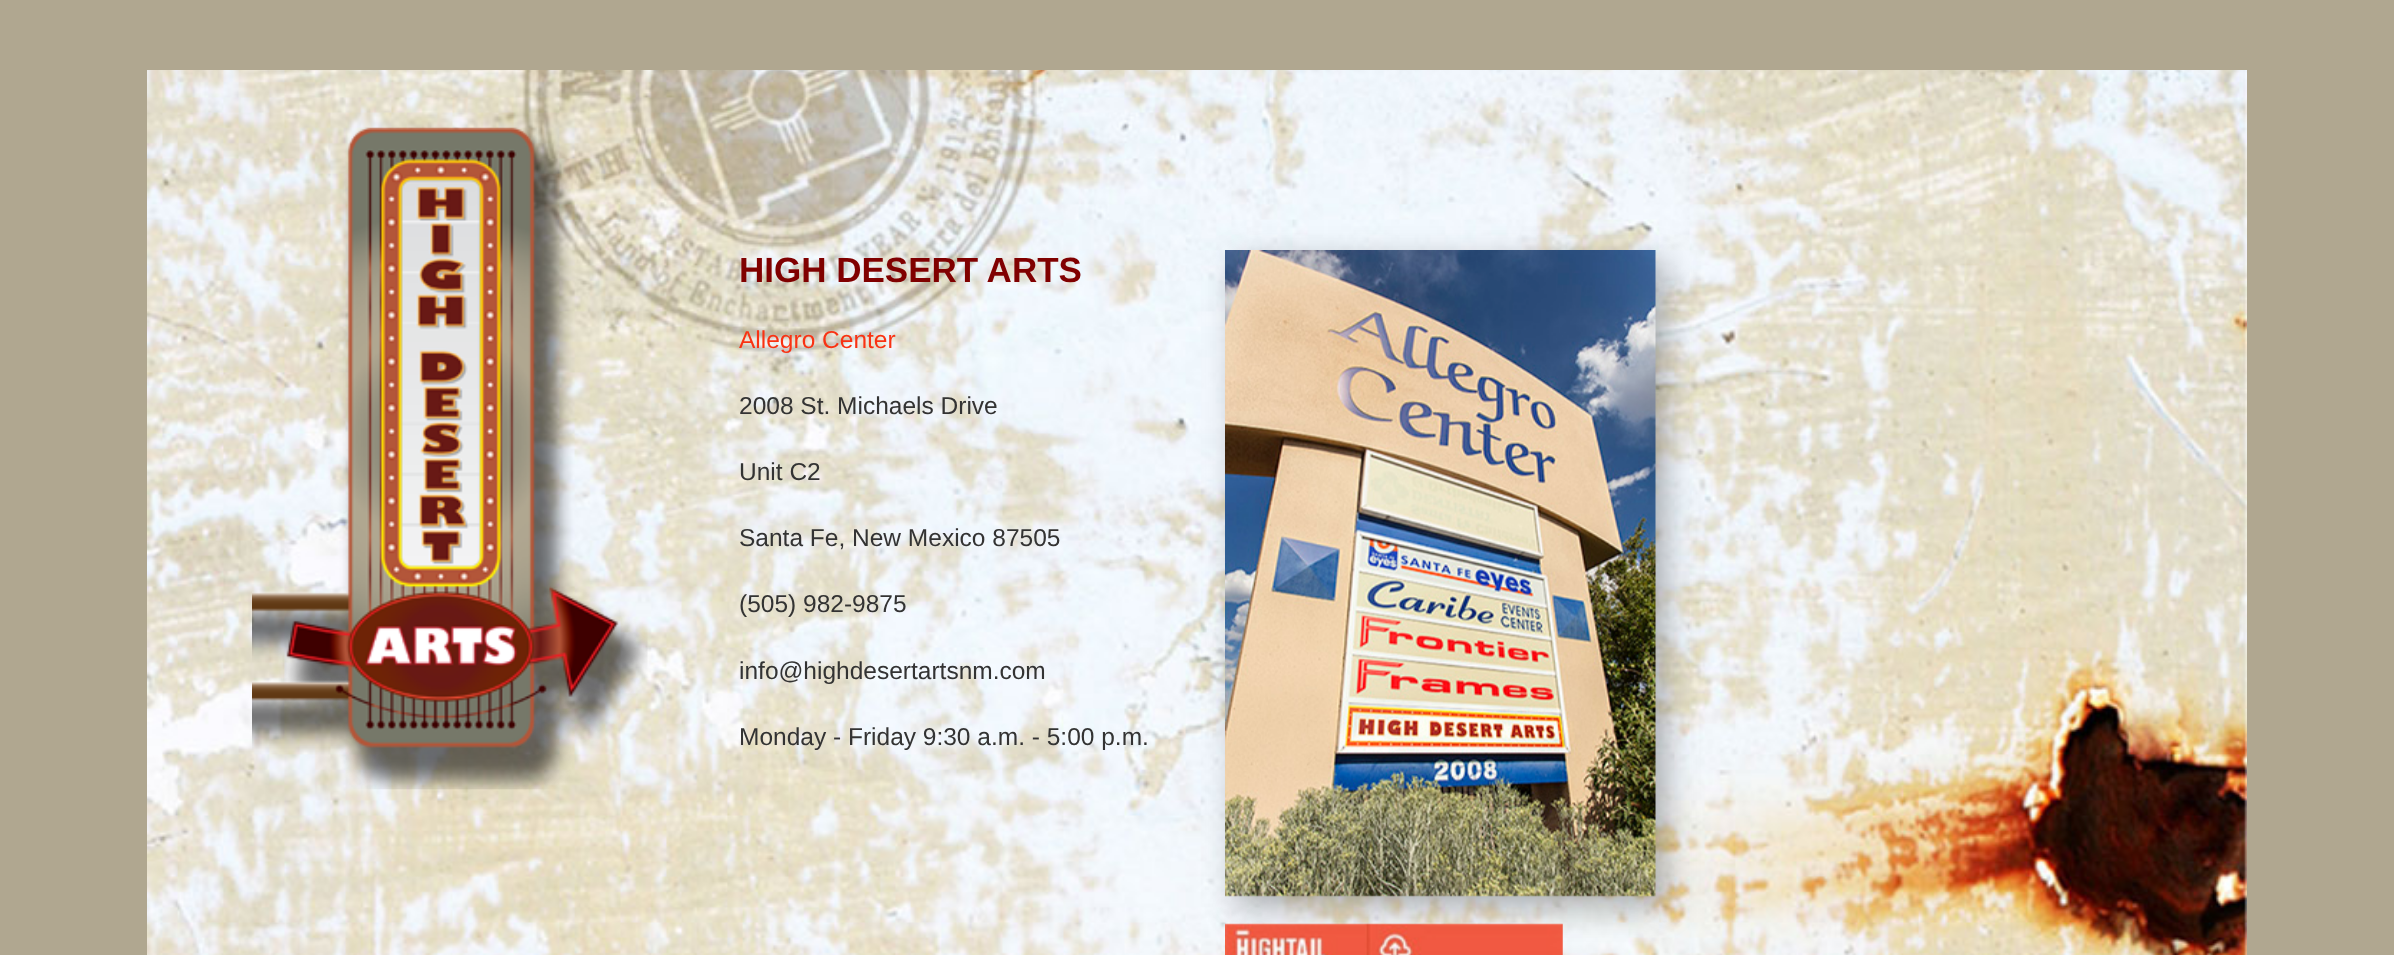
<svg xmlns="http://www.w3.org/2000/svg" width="2394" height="955">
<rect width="100%" height="100%" fill="#b0a790"/>
<image x="147" y="70" width="2100" height="885" href="media/1.png"/>
<image x="252" y="127" width="396" height="663" href="media/2.png"/>
<text x="739" y="282" style="font-family:Liberation Sans;font-size:35px;font-weight:bold;fill:#800000">HIGH DESERT ARTS</text>
<text x="739" y="348" style="font-family:Liberation Sans;font-size:24.5px;fill:#f93213">Allegro Center</text>
<text x="739" y="414" style="font-family:Liberation Sans;font-size:24.5px;fill:#333">2008 St. Michaels Drive</text>
<text x="739" y="480" style="font-family:Liberation Sans;font-size:24.5px;fill:#333">Unit C2</text>
<text x="739" y="546" style="font-family:Liberation Sans;font-size:24.5px;fill:#333">Santa Fe, New Mexico 87505</text>
<text x="739" y="612" style="font-family:Liberation Sans;font-size:24.5px;fill:#333">(505) 982-9875</text>
<text x="739" y="679" style="font-family:Liberation Sans;font-size:24.5px;fill:#333">info@highdesertartsnm.com</text>
<text x="739" y="745" style="font-family:Liberation Sans;font-size:24.5px;fill:#333">Monday - Friday 9:30 a.m. - 5:00 p.m.</text>
<rect x="1236" y="261" width="430" height="646" fill="#0000004d" filter="blur(16px)"/>
<image x="1225" y="250" width="431" height="647" href="media/3.png"/>
<image x="1225" y="923" width="338" height="32" href="media/4.png"/>
</svg>
